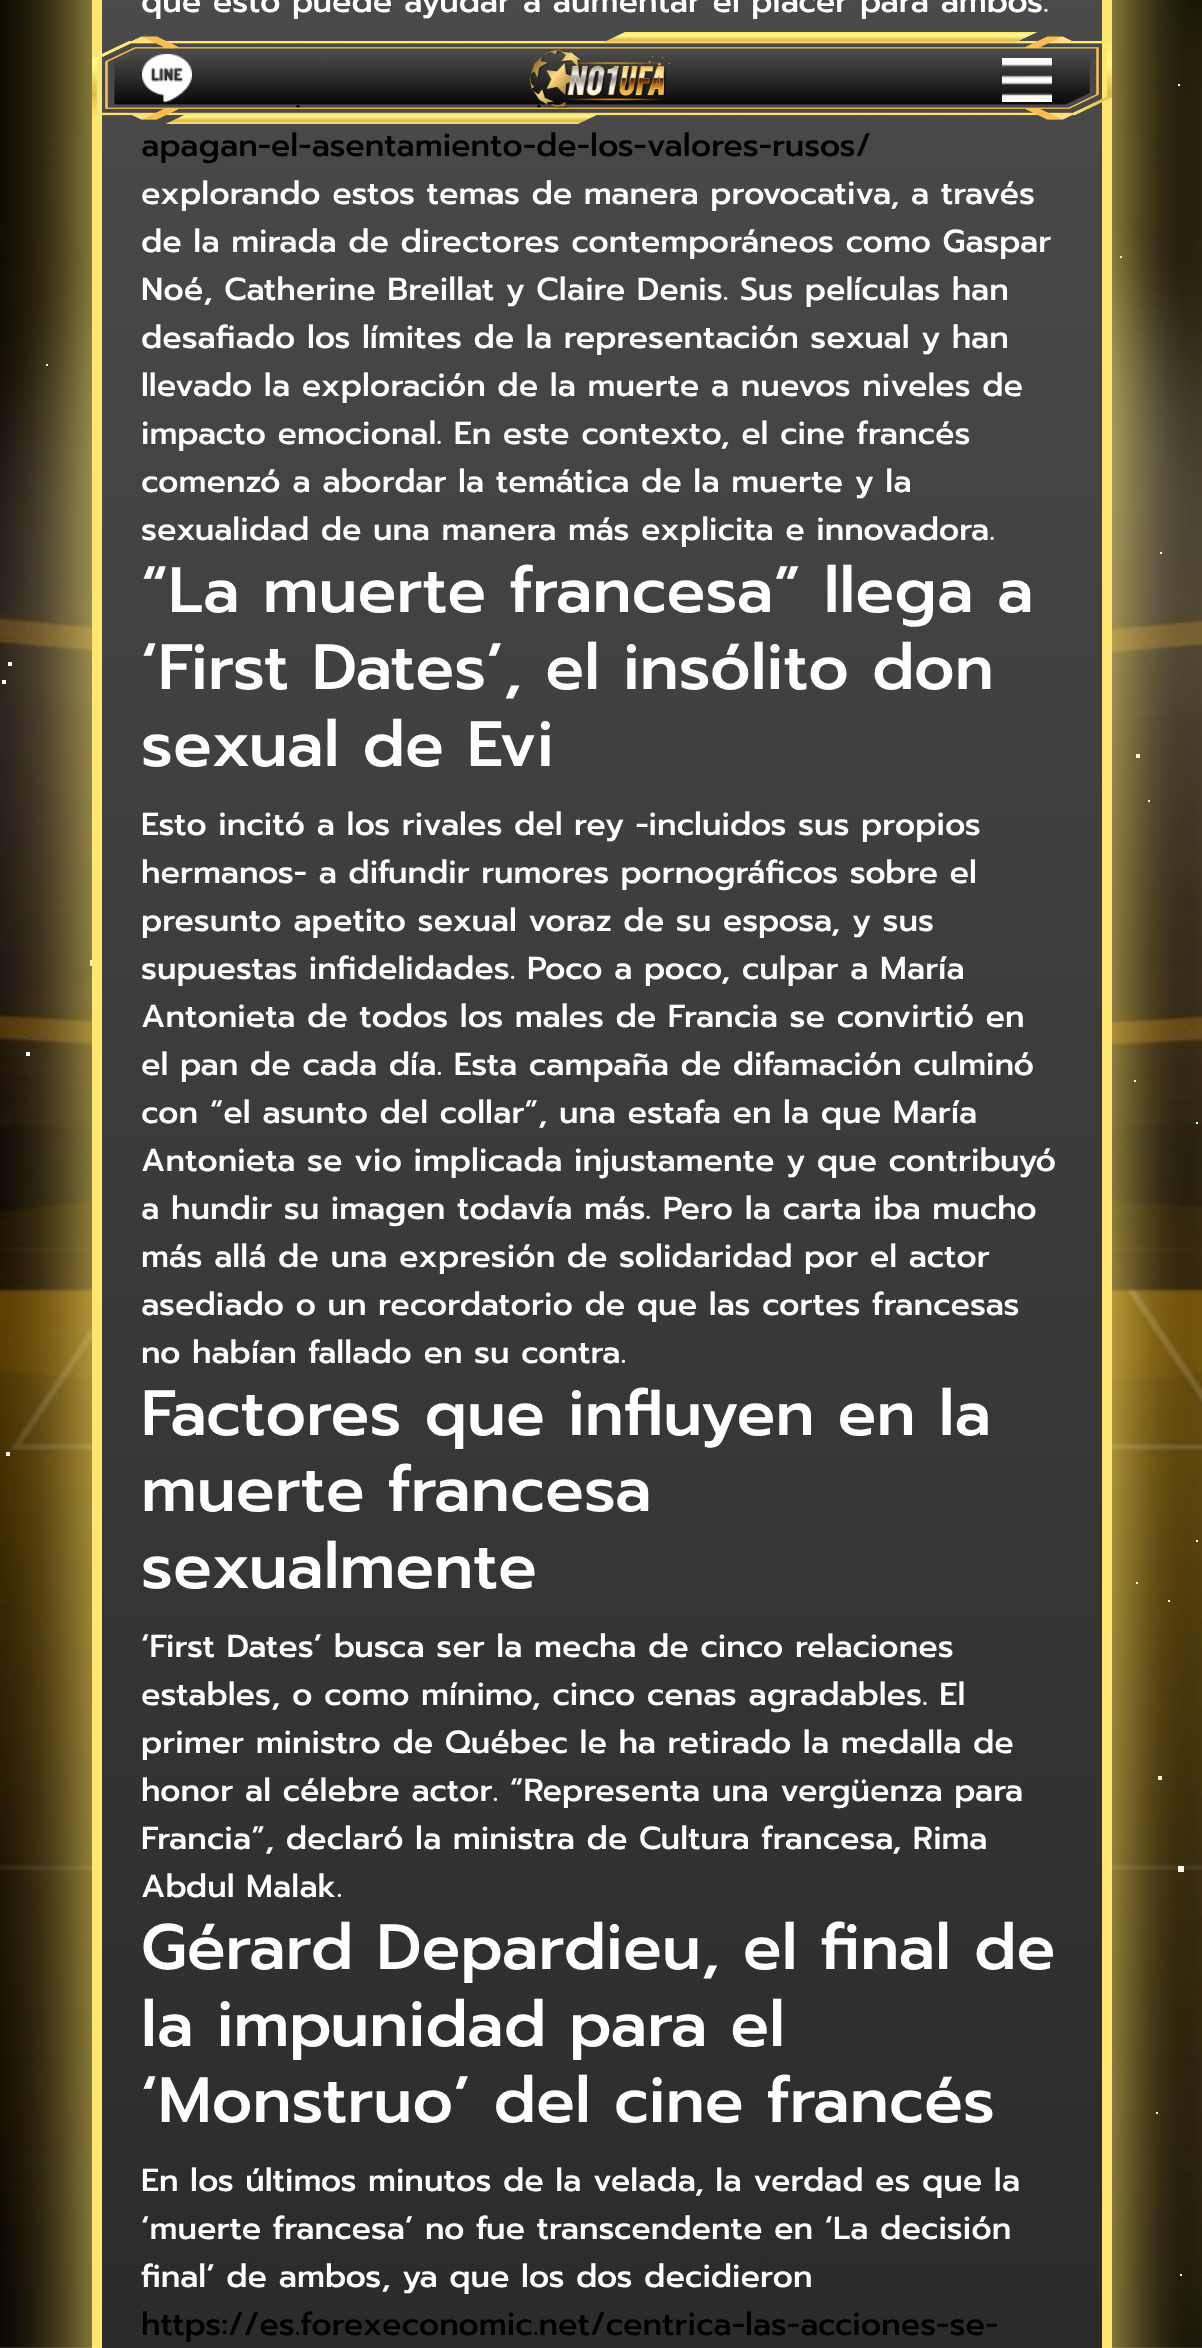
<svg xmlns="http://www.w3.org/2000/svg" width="1202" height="2348">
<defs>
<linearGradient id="g1" gradientUnits="userSpaceOnUse" x1="602" y1="-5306" x2="602" y2="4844"><stop offset="0" stop-color="#4e4d4d"/><stop offset="0.5" stop-color="#4e4d4d"/><stop offset="1" stop-color="#0a0a0a"/></linearGradient>
</defs>
<rect width="100%" height="100%" fill="#fff"/>
<image x="0" y="2218" width="1202" height="130" href="media/1.png"/>
<image x="0" y="0" width="1202" height="2218" href="media/2.png"/>
<rect x="1120" y="256" width="2" height="2" fill="#fff"/>
<rect x="1136" y="1582" width="2" height="2" fill="#fff"/>
<rect x="46" y="364" width="2" height="2" fill="#fff"/>
<rect x="1134" y="1080" width="2" height="2" fill="#fff"/>
<rect x="1196" y="1540" width="2" height="2" fill="#fff"/>
<rect x="1160" y="552" width="2" height="2" fill="#fff"/>
<rect x="1178" y="84" width="2" height="2" fill="#fff"/>
<rect x="6" y="1452" width="4" height="4" fill="#fff"/>
<rect x="1136" y="754" width="4" height="4" fill="#fff"/>
<rect x="26" y="1052" width="4" height="4" fill="#fff"/>
<rect x="8" y="662" width="4" height="4" fill="#fff"/>
<rect x="2" y="680" width="4" height="4" fill="#fff"/>
<rect x="1158" y="1776" width="4" height="4" fill="#fff"/>
<rect x="1168" y="1600" width="2" height="2" fill="#fff"/>
<rect x="1148" y="800" width="2" height="2" fill="#fff"/>
<rect x="1196" y="1122" width="2" height="2" fill="#fff"/>
<rect x="1156" y="2112" width="2" height="2" fill="#fff"/>
<rect x="1180" y="2274" width="2" height="2" fill="#fff"/>
<rect x="90" y="960" width="6" height="6" fill="#fff"/>
<rect x="1178" y="1866" width="6" height="6" fill="#fff"/>
<rect x="92" y="-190" width="1020" height="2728" rx="40" fill="#ffe66f" filter="blur(50px)"/>
<rect x="102" width="1000" height="2348" fill="url(#g1)"/>
<rect x="97" y="-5" width="1010" height="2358" fill="none" stroke="#ffe670" stroke-width="10"/>
<text x="141" y="12" style="font-family:Prompt;font-size:32px;font-weight:500;fill:#fff">que esto puede ayudar a aumentar el placer para ambos.</text>
<text x="295" y="108" style="font-family:Prompt;font-size:32px;font-weight:500;fill:#000">.</text>
<text x="536" y="108" style="font-family:Prompt;font-size:32px;font-weight:500;fill:#000">.</text>
<text x="141" y="156" style="font-family:Prompt;font-size:32px;font-weight:500;fill:#000">apagan-el-asentamiento-de-los-valores-rusos/</text>
<text x="141" y="204" style="font-family:Prompt;font-size:32px;font-weight:500;fill:#fff">explorando estos temas de manera provocativa, a través</text>
<text x="141" y="252" style="font-family:Prompt;font-size:32px;font-weight:500;fill:#fff">de la mirada de directores contemporáneos como Gaspar</text>
<text x="141" y="300" style="font-family:Prompt;font-size:32px;font-weight:500;fill:#fff">Noé, Catherine Breillat y Claire Denis. Sus películas han</text>
<text x="141" y="348" style="font-family:Prompt;font-size:32px;font-weight:500;fill:#fff">desafiado los límites de la representación sexual y han</text>
<text x="141" y="396" style="font-family:Prompt;font-size:32px;font-weight:500;fill:#fff">llevado la exploración de la muerte a nuevos niveles de</text>
<text x="141" y="444" style="font-family:Prompt;font-size:32px;font-weight:500;fill:#fff">impacto emocional. En este contexto, el cine francés</text>
<text x="141" y="492" style="font-family:Prompt;font-size:32px;font-weight:500;fill:#fff">comenzó a abordar la temática de la muerte y la</text>
<text x="141" y="540" style="font-family:Prompt;font-size:32px;font-weight:500;fill:#fff">sexualidad de una manera más explicita e innovadora.</text>
<text x="141" y="612" style="font-family:Prompt;font-size:64px;font-weight:500;fill:#fff">“La muerte francesa” llega a</text>
<text x="141" y="689" style="font-family:Prompt;font-size:64px;font-weight:500;fill:#fff">‘First Dates’, el insólito don</text>
<text x="141" y="766" style="font-family:Prompt;font-size:64px;font-weight:500;fill:#fff">sexual de Evi</text>
<text x="141" y="835" style="font-family:Prompt;font-size:32px;font-weight:500;fill:#fff">Esto incitó a los rivales del rey -incluidos sus propios</text>
<text x="141" y="883" style="font-family:Prompt;font-size:32px;font-weight:500;fill:#fff">hermanos- a difundir rumores pornográficos sobre el</text>
<text x="141" y="931" style="font-family:Prompt;font-size:32px;font-weight:500;fill:#fff">presunto apetito sexual voraz de su esposa, y sus</text>
<text x="141" y="979" style="font-family:Prompt;font-size:32px;font-weight:500;fill:#fff">supuestas infidelidades. Poco a poco, culpar a María</text>
<text x="141" y="1027" style="font-family:Prompt;font-size:32px;font-weight:500;fill:#fff">Antonieta de todos los males de Francia se convirtió en</text>
<text x="141" y="1075" style="font-family:Prompt;font-size:32px;font-weight:500;fill:#fff">el pan de cada día. Esta campaña de difamación culminó</text>
<text x="141" y="1123" style="font-family:Prompt;font-size:32px;font-weight:500;fill:#fff">con “el asunto del collar”, una estafa en la que María</text>
<text x="141" y="1171" style="font-family:Prompt;font-size:32px;font-weight:500;fill:#fff">Antonieta se vio implicada injustamente y que contribuyó</text>
<text x="141" y="1219" style="font-family:Prompt;font-size:32px;font-weight:500;fill:#fff">a hundir su imagen todavía más. Pero la carta iba mucho</text>
<text x="141" y="1267" style="font-family:Prompt;font-size:32px;font-weight:500;fill:#fff">más allá de una expresión de solidaridad por el actor</text>
<text x="141" y="1315" style="font-family:Prompt;font-size:32px;font-weight:500;fill:#fff">asediado o un recordatorio de que las cortes francesas</text>
<text x="141" y="1363" style="font-family:Prompt;font-size:32px;font-weight:500;fill:#fff">no habían fallado en su contra.</text>
<text x="141" y="1435" style="font-family:Prompt;font-size:64px;font-weight:500;fill:#fff">Factores que influyen en la</text>
<text x="141" y="1511" style="font-family:Prompt;font-size:64px;font-weight:500;fill:#fff">muerte francesa</text>
<text x="141" y="1588" style="font-family:Prompt;font-size:64px;font-weight:500;fill:#fff">sexualmente</text>
<text x="141" y="1657" style="font-family:Prompt;font-size:32px;font-weight:500;fill:#fff">‘First Dates’ busca ser la mecha de cinco relaciones</text>
<text x="141" y="1705" style="font-family:Prompt;font-size:32px;font-weight:500;fill:#fff">estables, o como mínimo, cinco cenas agradables. El</text>
<text x="141" y="1753" style="font-family:Prompt;font-size:32px;font-weight:500;fill:#fff">primer ministro de Québec le ha retirado la medalla de</text>
<text x="141" y="1801" style="font-family:Prompt;font-size:32px;font-weight:500;fill:#fff">honor al célebre actor. “Representa una vergüenza para</text>
<text x="141" y="1849" style="font-family:Prompt;font-size:32px;font-weight:500;fill:#fff">Francia”, declaró la ministra de Cultura francesa, Rima</text>
<text x="141" y="1897" style="font-family:Prompt;font-size:32px;font-weight:500;fill:#fff">Abdul Malak.</text>
<text x="141" y="1969" style="font-family:Prompt;font-size:64px;font-weight:500;fill:#fff">Gérard Depardieu, el final de</text>
<text x="141" y="2046" style="font-family:Prompt;font-size:64px;font-weight:500;fill:#fff">la impunidad para el</text>
<text x="141" y="2122" style="font-family:Prompt;font-size:64px;font-weight:500;fill:#fff">‘Monstruo’ del cine francés</text>
<text x="141" y="2191" style="font-family:Prompt;font-size:32px;font-weight:500;fill:#fff">En los últimos minutos de la velada, la verdad es que la</text>
<text x="141" y="2239" style="font-family:Prompt;font-size:32px;font-weight:500;fill:#fff">‘muerte francesa’ no fue transcendente en ‘La decisión</text>
<text x="141" y="2287" style="font-family:Prompt;font-size:32px;font-weight:500;fill:#fff">final’ de ambos, ya que los dos decidieron</text>
<text x="141" y="2335" style="font-family:Prompt;font-size:32px;font-weight:500;fill:#000">https://es.forexeconomic.net/centrica-las-acciones-se-</text>
<rect x="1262" y="8" width="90" height="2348" fill="#ffe66f" filter="blur(50px)"/>
<image x="91" y="32" width="1021" height="92" href="media/3.png"/>
<image x="142" y="54" width="50" height="49" href="media/4.png"/>
<image x="529" y="49" width="142" height="60" href="media/5.png"/>
<image x="1002" y="58" width="50" height="44" href="media/6.png"/>
</svg>
